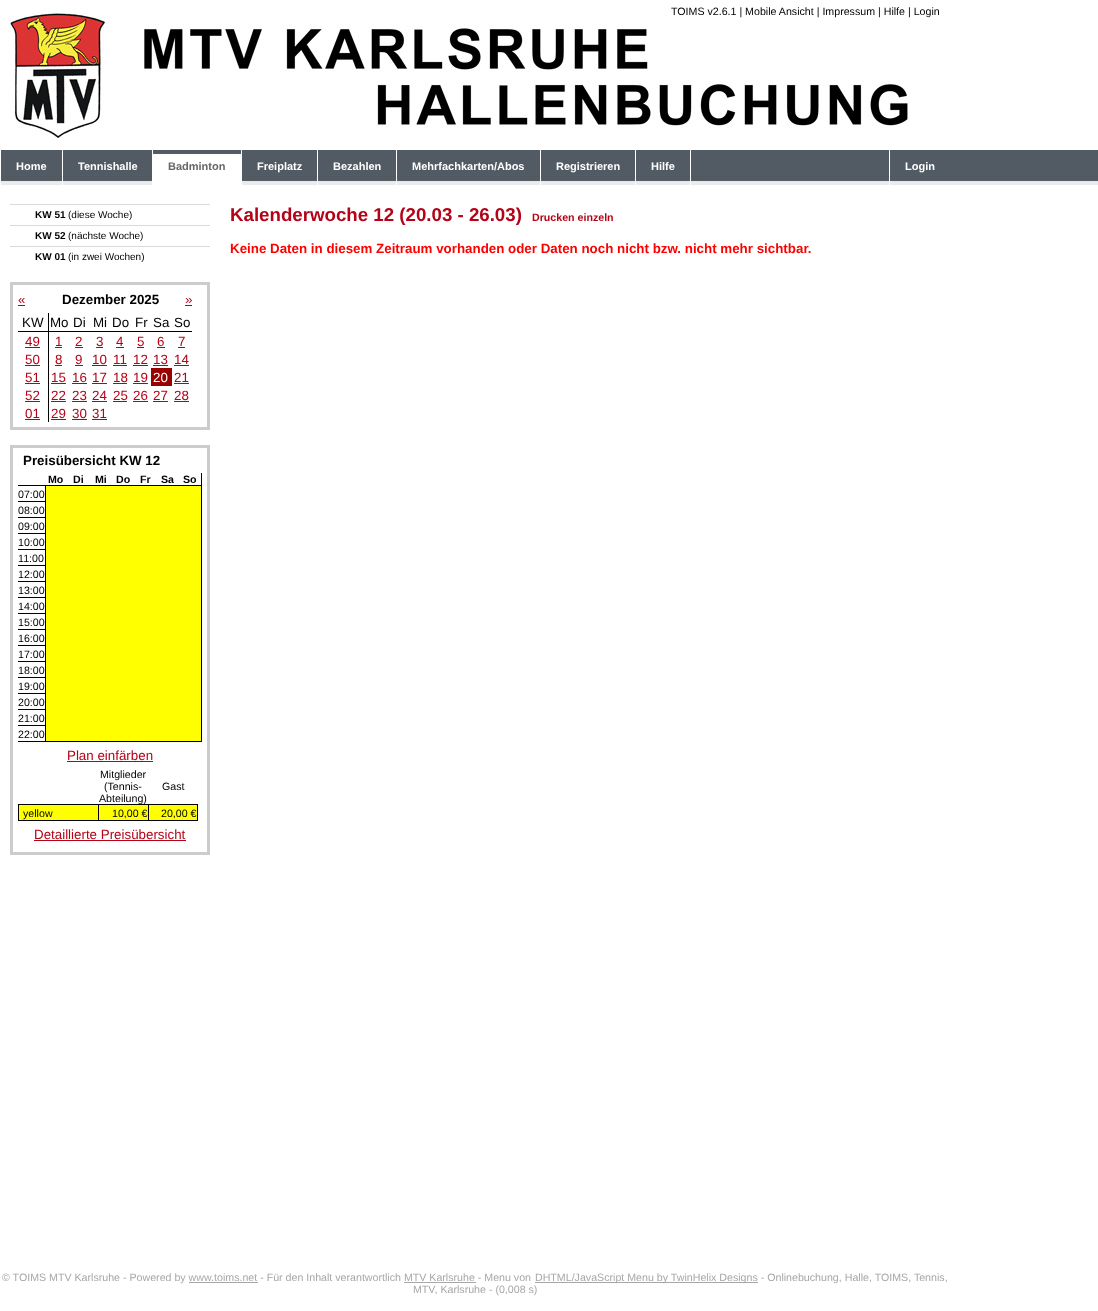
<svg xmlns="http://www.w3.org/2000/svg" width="1098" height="1311">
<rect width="100%" height="100%" fill="#fff"/>
<image x="8" y="8" width="903" height="132" href="media/1.png"/>
<text x="671" y="15" style="font-family:Liberation Sans;font-size:10.65px;fill:#000">TOIMS v2.6.1 | Mobile Ansicht | Impressum | Hilfe | Login</text>
<image x="1" y="150" width="949" height="35" href="media/2.png"/>
<text x="16" y="170" style="font-family:Liberation Sans;font-size:11px;font-weight:bold;fill:#fff">Home</text>
<rect x="62" y="150" width="1" height="36" fill="#fff"/>
<text x="78" y="170" style="font-family:Liberation Sans;font-size:11px;font-weight:bold;fill:#fff">Tennishalle</text>
<rect x="152" y="150" width="1" height="36" fill="#fff"/>
<image x="153" y="153" width="88" height="32" href="media/3.png"/>
<text x="168" y="170" style="font-family:Liberation Sans;font-size:11px;font-weight:bold;fill:#666">Badminton</text>
<rect x="241" y="150" width="1" height="36" fill="#fff"/>
<text x="257" y="170" style="font-family:Liberation Sans;font-size:11px;font-weight:bold;fill:#fff">Freiplatz</text>
<rect x="317" y="150" width="1" height="36" fill="#fff"/>
<text x="333" y="170" style="font-family:Liberation Sans;font-size:11px;font-weight:bold;fill:#fff">Bezahlen</text>
<rect x="396" y="150" width="1" height="36" fill="#fff"/>
<text x="412" y="170" style="font-family:Liberation Sans;font-size:11px;font-weight:bold;fill:#fff">Mehrfachkarten/Abos</text>
<rect x="540" y="150" width="1" height="36" fill="#fff"/>
<text x="556" y="170" style="font-family:Liberation Sans;font-size:11px;font-weight:bold;fill:#fff">Registrieren</text>
<rect x="690" y="150" width="1" height="36" fill="#fff"/>
<rect x="635" y="150" width="1" height="36" fill="#fff"/>
<text x="651" y="170" style="font-family:Liberation Sans;font-size:11px;font-weight:bold;fill:#fff">Hilfe</text>
<rect x="889" y="150" width="1" height="36" fill="#fff"/>
<text x="905" y="170" style="font-family:Liberation Sans;font-size:11px;font-weight:bold;fill:#fff">Login</text>
<rect x="10" y="204" width="200" height="1" fill="#d9dadc"/>
<text x="35" y="218" style="font-family:Liberation Sans;font-size:10px;font-weight:bold;fill:#000">KW 51</text>
<text x="68" y="218" style="font-family:Liberation Sans;font-size:10px;fill:#000">(diese Woche)</text>
<rect x="10" y="225" width="200" height="1" fill="#d9dadc"/>
<text x="35" y="239" style="font-family:Liberation Sans;font-size:10px;font-weight:bold;fill:#000">KW 52</text>
<text x="68" y="239" style="font-family:Liberation Sans;font-size:10px;fill:#000">(nächste Woche)</text>
<rect x="10" y="246" width="200" height="1" fill="#d9dadc"/>
<text x="35" y="260" style="font-family:Liberation Sans;font-size:10px;font-weight:bold;fill:#000">KW 01</text>
<text x="68" y="260" style="font-family:Liberation Sans;font-size:10px;fill:#000">(in zwei Wochen)</text>
<rect x="11.5" y="283.5" width="197" height="145" fill="none" stroke="#ccc" stroke-width="3"/>
<text x="18" y="304" style="font-family:Liberation Sans;font-size:13.35px;fill:#b40317">«</text>
<rect x="18" y="305" width="7" height="1" fill="#b40317"/>
<text x="62" y="304" style="font-family:Liberation Sans;font-size:13.35px;font-weight:bold;fill:#000">Dezember 2025</text>
<text x="185" y="304" style="font-family:Liberation Sans;font-size:13.35px;fill:#b40317">»</text>
<rect x="185" y="305" width="7" height="1" fill="#b40317"/>
<rect x="48" y="313" width="1" height="109" fill="#000"/>
<rect x="18" y="331" width="174" height="1" fill="#000"/>
<text x="22" y="327" style="font-family:Liberation Sans;font-size:13.35px;fill:#000">KW</text>
<text x="50" y="327" style="font-family:Liberation Sans;font-size:13.35px;fill:#000">Mo</text>
<text x="73" y="327" style="font-family:Liberation Sans;font-size:13.35px;fill:#000">Di</text>
<text x="93" y="327" style="font-family:Liberation Sans;font-size:13.35px;fill:#000">Mi</text>
<text x="112" y="327" style="font-family:Liberation Sans;font-size:13.35px;fill:#000">Do</text>
<text x="135" y="327" style="font-family:Liberation Sans;font-size:13.35px;fill:#000">Fr</text>
<text x="153" y="327" style="font-family:Liberation Sans;font-size:13.35px;fill:#000">Sa</text>
<text x="174" y="327" style="font-family:Liberation Sans;font-size:13.35px;fill:#000">So</text>
<text x="25" y="346" style="font-family:Liberation Sans;font-size:13.35px;fill:#b40317">49</text>
<rect x="25" y="347" width="15" height="1" fill="#b40317"/>
<text x="55" y="346" style="font-family:Liberation Sans;font-size:13.35px;fill:#b40317">1</text>
<rect x="55" y="347" width="7" height="1" fill="#b40317"/>
<text x="75" y="346" style="font-family:Liberation Sans;font-size:13.35px;fill:#b40317">2</text>
<rect x="75" y="347" width="8" height="1" fill="#b40317"/>
<text x="96" y="346" style="font-family:Liberation Sans;font-size:13.35px;fill:#b40317">3</text>
<rect x="96" y="347" width="7" height="1" fill="#b40317"/>
<text x="116" y="346" style="font-family:Liberation Sans;font-size:13.35px;fill:#b40317">4</text>
<rect x="116" y="347" width="8" height="1" fill="#b40317"/>
<text x="137" y="346" style="font-family:Liberation Sans;font-size:13.35px;fill:#b40317">5</text>
<rect x="137" y="347" width="7" height="1" fill="#b40317"/>
<text x="157" y="346" style="font-family:Liberation Sans;font-size:13.35px;fill:#b40317">6</text>
<rect x="157" y="347" width="8" height="1" fill="#b40317"/>
<text x="178" y="346" style="font-family:Liberation Sans;font-size:13.35px;fill:#b40317">7</text>
<rect x="178" y="347" width="7" height="1" fill="#b40317"/>
<text x="25" y="364" style="font-family:Liberation Sans;font-size:13.35px;fill:#b40317">50</text>
<rect x="25" y="365" width="15" height="1" fill="#b40317"/>
<text x="55" y="364" style="font-family:Liberation Sans;font-size:13.35px;fill:#b40317">8</text>
<rect x="55" y="365" width="7" height="1" fill="#b40317"/>
<text x="75" y="364" style="font-family:Liberation Sans;font-size:13.35px;fill:#b40317">9</text>
<rect x="75" y="365" width="8" height="1" fill="#b40317"/>
<text x="92" y="364" style="font-family:Liberation Sans;font-size:13.35px;fill:#b40317">10</text>
<rect x="92" y="365" width="15" height="1" fill="#b40317"/>
<text x="113" y="364" style="font-family:Liberation Sans;font-size:13.35px;fill:#b40317">11</text>
<rect x="113" y="365" width="14" height="1" fill="#b40317"/>
<text x="133" y="364" style="font-family:Liberation Sans;font-size:13.35px;fill:#b40317">12</text>
<rect x="133" y="365" width="15" height="1" fill="#b40317"/>
<text x="153" y="364" style="font-family:Liberation Sans;font-size:13.35px;fill:#b40317">13</text>
<rect x="153" y="365" width="15" height="1" fill="#b40317"/>
<text x="174" y="364" style="font-family:Liberation Sans;font-size:13.35px;fill:#b40317">14</text>
<rect x="174" y="365" width="15" height="1" fill="#b40317"/>
<text x="25" y="382" style="font-family:Liberation Sans;font-size:13.35px;fill:#b40317">51</text>
<rect x="25" y="383" width="15" height="1" fill="#b40317"/>
<text x="51" y="382" style="font-family:Liberation Sans;font-size:13.35px;fill:#b40317">15</text>
<rect x="51" y="383" width="15" height="1" fill="#b40317"/>
<text x="72" y="382" style="font-family:Liberation Sans;font-size:13.35px;fill:#b40317">16</text>
<rect x="72" y="383" width="15" height="1" fill="#b40317"/>
<text x="92" y="382" style="font-family:Liberation Sans;font-size:13.35px;fill:#b40317">17</text>
<rect x="92" y="383" width="15" height="1" fill="#b40317"/>
<text x="113" y="382" style="font-family:Liberation Sans;font-size:13.35px;fill:#b40317">18</text>
<rect x="113" y="383" width="14" height="1" fill="#b40317"/>
<text x="133" y="382" style="font-family:Liberation Sans;font-size:13.35px;fill:#b40317">19</text>
<rect x="133" y="383" width="15" height="1" fill="#b40317"/>
<rect x="151" y="368" width="21" height="18" fill="#900"/>
<text x="153" y="382" style="font-family:Liberation Sans;font-size:13.35px;fill:#fff">20</text>
<text x="174" y="382" style="font-family:Liberation Sans;font-size:13.35px;fill:#b40317">21</text>
<rect x="174" y="383" width="15" height="1" fill="#b40317"/>
<text x="25" y="400" style="font-family:Liberation Sans;font-size:13.35px;fill:#b40317">52</text>
<rect x="25" y="401" width="15" height="1" fill="#b40317"/>
<text x="51" y="400" style="font-family:Liberation Sans;font-size:13.35px;fill:#b40317">22</text>
<rect x="51" y="401" width="15" height="1" fill="#b40317"/>
<text x="72" y="400" style="font-family:Liberation Sans;font-size:13.35px;fill:#b40317">23</text>
<rect x="72" y="401" width="15" height="1" fill="#b40317"/>
<text x="92" y="400" style="font-family:Liberation Sans;font-size:13.35px;fill:#b40317">24</text>
<rect x="92" y="401" width="15" height="1" fill="#b40317"/>
<text x="113" y="400" style="font-family:Liberation Sans;font-size:13.35px;fill:#b40317">25</text>
<rect x="113" y="401" width="14" height="1" fill="#b40317"/>
<text x="133" y="400" style="font-family:Liberation Sans;font-size:13.35px;fill:#b40317">26</text>
<rect x="133" y="401" width="15" height="1" fill="#b40317"/>
<text x="153" y="400" style="font-family:Liberation Sans;font-size:13.35px;fill:#b40317">27</text>
<rect x="153" y="401" width="15" height="1" fill="#b40317"/>
<text x="174" y="400" style="font-family:Liberation Sans;font-size:13.35px;fill:#b40317">28</text>
<rect x="174" y="401" width="15" height="1" fill="#b40317"/>
<text x="25" y="418" style="font-family:Liberation Sans;font-size:13.35px;fill:#b40317">01</text>
<rect x="25" y="419" width="15" height="1" fill="#b40317"/>
<text x="51" y="418" style="font-family:Liberation Sans;font-size:13.35px;fill:#b40317">29</text>
<rect x="51" y="419" width="15" height="1" fill="#b40317"/>
<text x="72" y="418" style="font-family:Liberation Sans;font-size:13.35px;fill:#b40317">30</text>
<rect x="72" y="419" width="15" height="1" fill="#b40317"/>
<text x="92" y="418" style="font-family:Liberation Sans;font-size:13.35px;fill:#b40317">31</text>
<rect x="92" y="419" width="15" height="1" fill="#b40317"/>
<rect x="11.5" y="446.5" width="197" height="407" fill="none" stroke="#ccc" stroke-width="3"/>
<text x="23" y="465" style="font-family:Liberation Sans;font-size:13.35px;font-weight:bold;fill:#000">Preisübersicht KW 12</text>
<rect x="201" y="473" width="1" height="269" fill="#000"/>
<rect x="18" y="741" width="184" height="1" fill="#000"/>
<text x="48" y="483" style="font-family:Liberation Sans;font-size:10.65px;font-weight:bold;fill:#000">Mo</text>
<text x="73" y="483" style="font-family:Liberation Sans;font-size:10.65px;font-weight:bold;fill:#000">Di</text>
<text x="95" y="483" style="font-family:Liberation Sans;font-size:10.65px;font-weight:bold;fill:#000">Mi</text>
<text x="116" y="483" style="font-family:Liberation Sans;font-size:10.65px;font-weight:bold;fill:#000">Do</text>
<text x="140" y="483" style="font-family:Liberation Sans;font-size:10.65px;font-weight:bold;fill:#000">Fr</text>
<text x="161" y="483" style="font-family:Liberation Sans;font-size:10.65px;font-weight:bold;fill:#000">Sa</text>
<text x="183" y="483" style="font-family:Liberation Sans;font-size:10.65px;font-weight:bold;fill:#000">So</text>
<rect x="18" y="485" width="183" height="1" fill="#000"/>
<text x="18" y="498" style="font-family:Liberation Sans;font-size:10.65px;fill:#000">07:00</text>
<rect x="46" y="486" width="155" height="15" fill="#ff0"/>
<rect x="45" y="485" width="1" height="256" fill="#000"/>
<rect x="18" y="501" width="27" height="1" fill="#000"/>
<text x="18" y="514" style="font-family:Liberation Sans;font-size:10.65px;fill:#000">08:00</text>
<rect x="46" y="501" width="155" height="16" fill="#ff0"/>
<rect x="18" y="517" width="27" height="1" fill="#000"/>
<text x="18" y="530" style="font-family:Liberation Sans;font-size:10.65px;fill:#000">09:00</text>
<rect x="46" y="517" width="155" height="16" fill="#ff0"/>
<rect x="18" y="533" width="27" height="1" fill="#000"/>
<text x="18" y="546" style="font-family:Liberation Sans;font-size:10.65px;fill:#000">10:00</text>
<rect x="46" y="533" width="155" height="16" fill="#ff0"/>
<rect x="18" y="549" width="27" height="1" fill="#000"/>
<text x="18" y="562" style="font-family:Liberation Sans;font-size:10.65px;fill:#000">11:00</text>
<rect x="46" y="549" width="155" height="16" fill="#ff0"/>
<rect x="18" y="565" width="27" height="1" fill="#000"/>
<text x="18" y="578" style="font-family:Liberation Sans;font-size:10.65px;fill:#000">12:00</text>
<rect x="46" y="565" width="155" height="16" fill="#ff0"/>
<rect x="18" y="581" width="27" height="1" fill="#000"/>
<text x="18" y="594" style="font-family:Liberation Sans;font-size:10.65px;fill:#000">13:00</text>
<rect x="46" y="581" width="155" height="16" fill="#ff0"/>
<rect x="18" y="597" width="27" height="1" fill="#000"/>
<text x="18" y="610" style="font-family:Liberation Sans;font-size:10.65px;fill:#000">14:00</text>
<rect x="46" y="597" width="155" height="16" fill="#ff0"/>
<rect x="18" y="613" width="27" height="1" fill="#000"/>
<text x="18" y="626" style="font-family:Liberation Sans;font-size:10.65px;fill:#000">15:00</text>
<rect x="46" y="613" width="155" height="16" fill="#ff0"/>
<rect x="18" y="629" width="27" height="1" fill="#000"/>
<text x="18" y="642" style="font-family:Liberation Sans;font-size:10.65px;fill:#000">16:00</text>
<rect x="46" y="629" width="155" height="16" fill="#ff0"/>
<rect x="18" y="645" width="27" height="1" fill="#000"/>
<text x="18" y="658" style="font-family:Liberation Sans;font-size:10.65px;fill:#000">17:00</text>
<rect x="46" y="645" width="155" height="16" fill="#ff0"/>
<rect x="18" y="661" width="27" height="1" fill="#000"/>
<text x="18" y="674" style="font-family:Liberation Sans;font-size:10.65px;fill:#000">18:00</text>
<rect x="46" y="661" width="155" height="16" fill="#ff0"/>
<rect x="18" y="677" width="27" height="1" fill="#000"/>
<text x="18" y="690" style="font-family:Liberation Sans;font-size:10.65px;fill:#000">19:00</text>
<rect x="46" y="677" width="155" height="16" fill="#ff0"/>
<rect x="18" y="693" width="27" height="1" fill="#000"/>
<text x="18" y="706" style="font-family:Liberation Sans;font-size:10.65px;fill:#000">20:00</text>
<rect x="46" y="693" width="155" height="16" fill="#ff0"/>
<rect x="18" y="709" width="27" height="1" fill="#000"/>
<text x="18" y="722" style="font-family:Liberation Sans;font-size:10.65px;fill:#000">21:00</text>
<rect x="46" y="709" width="155" height="16" fill="#ff0"/>
<rect x="18" y="725" width="27" height="1" fill="#000"/>
<text x="18" y="738" style="font-family:Liberation Sans;font-size:10.65px;fill:#000">22:00</text>
<rect x="46" y="725" width="155" height="16" fill="#ff0"/>
<text x="67" y="760" style="font-family:Liberation Sans;font-size:13.35px;fill:#b40317">Plan einfärben</text>
<rect x="67" y="761" width="86" height="1" fill="#b40317"/>
<rect x="18" y="820" width="180" height="1" fill="#000"/>
<text x="100" y="778" style="font-family:Liberation Sans;font-size:10.65px;fill:#000">Mitglieder</text>
<text x="104" y="790" style="font-family:Liberation Sans;font-size:10.65px;fill:#000">(Tennis-</text>
<rect x="18" y="804" width="180" height="1" fill="#000"/>
<text x="99" y="802" style="font-family:Liberation Sans;font-size:10.65px;fill:#000">Abteilung)</text>
<text x="162" y="790" style="font-family:Liberation Sans;font-size:10.65px;fill:#000">Gast</text>
<rect x="19" y="805" width="178" height="15" fill="#ff0"/>
<rect x="18" y="804" width="1" height="16" fill="#000"/>
<text x="23" y="817" style="font-family:Liberation Sans;font-size:10.65px;fill:#000">yellow</text>
<rect x="98" y="804" width="1" height="16" fill="#000"/>
<text x="112" y="817" style="font-family:Liberation Sans;font-size:10.65px;fill:#000">10,00 €</text>
<rect x="197" y="804" width="1" height="16" fill="#000"/>
<rect x="148" y="804" width="1" height="16" fill="#000"/>
<text x="161" y="817" style="font-family:Liberation Sans;font-size:10.65px;fill:#000">20,00 €</text>
<text x="34" y="839" style="font-family:Liberation Sans;font-size:13.35px;fill:#b40317">Detaillierte Preisübersicht</text>
<rect x="34" y="840" width="152" height="1" fill="#b40317"/>
<text x="230" y="221" style="font-family:Liberation Sans;font-size:18.7px;font-weight:bold;fill:#b40317">Kalenderwoche 12 (20.03 - 26.03)</text>
<text x="532" y="221" style="font-family:Liberation Sans;font-size:10.65px;font-weight:bold;fill:#b40317">Drucken einzeln</text>
<text x="230" y="253" style="font-family:Liberation Sans;font-size:13.35px;font-weight:bold;fill:#f00">Keine Daten in diesem Zeitraum vorhanden oder Daten noch nicht bzw. nicht mehr sichtbar.</text>
<text x="2" y="1281" style="font-family:Liberation Sans;font-size:10.65px;fill:#a7a7a7">© TOIMS MTV Karlsruhe - Powered by www.toims.net - Für den Inhalt verantwortlich MTV Karlsruhe - Menu von</text>
<rect x="189" y="1282" width="69" height="1" fill="#a7a7a7"/>
<rect x="404" y="1282" width="72" height="1" fill="#a7a7a7"/>
<rect x="535" y="1282" width="223" height="1" fill="#a7a7a7"/>
<text x="535" y="1281" style="font-family:Liberation Sans;font-size:10.65px;fill:#a7a7a7">DHTML/JavaScript Menu by TwinHelix Designs - Onlinebuchung, Halle, TOIMS, Tennis,</text>
<text x="413" y="1293" style="font-family:Liberation Sans;font-size:10.65px;fill:#a7a7a7">MTV, Karlsruhe - (0,008 s)</text>
<image x="950" y="150" width="148" height="36" href="media/4.png"/>
</svg>
